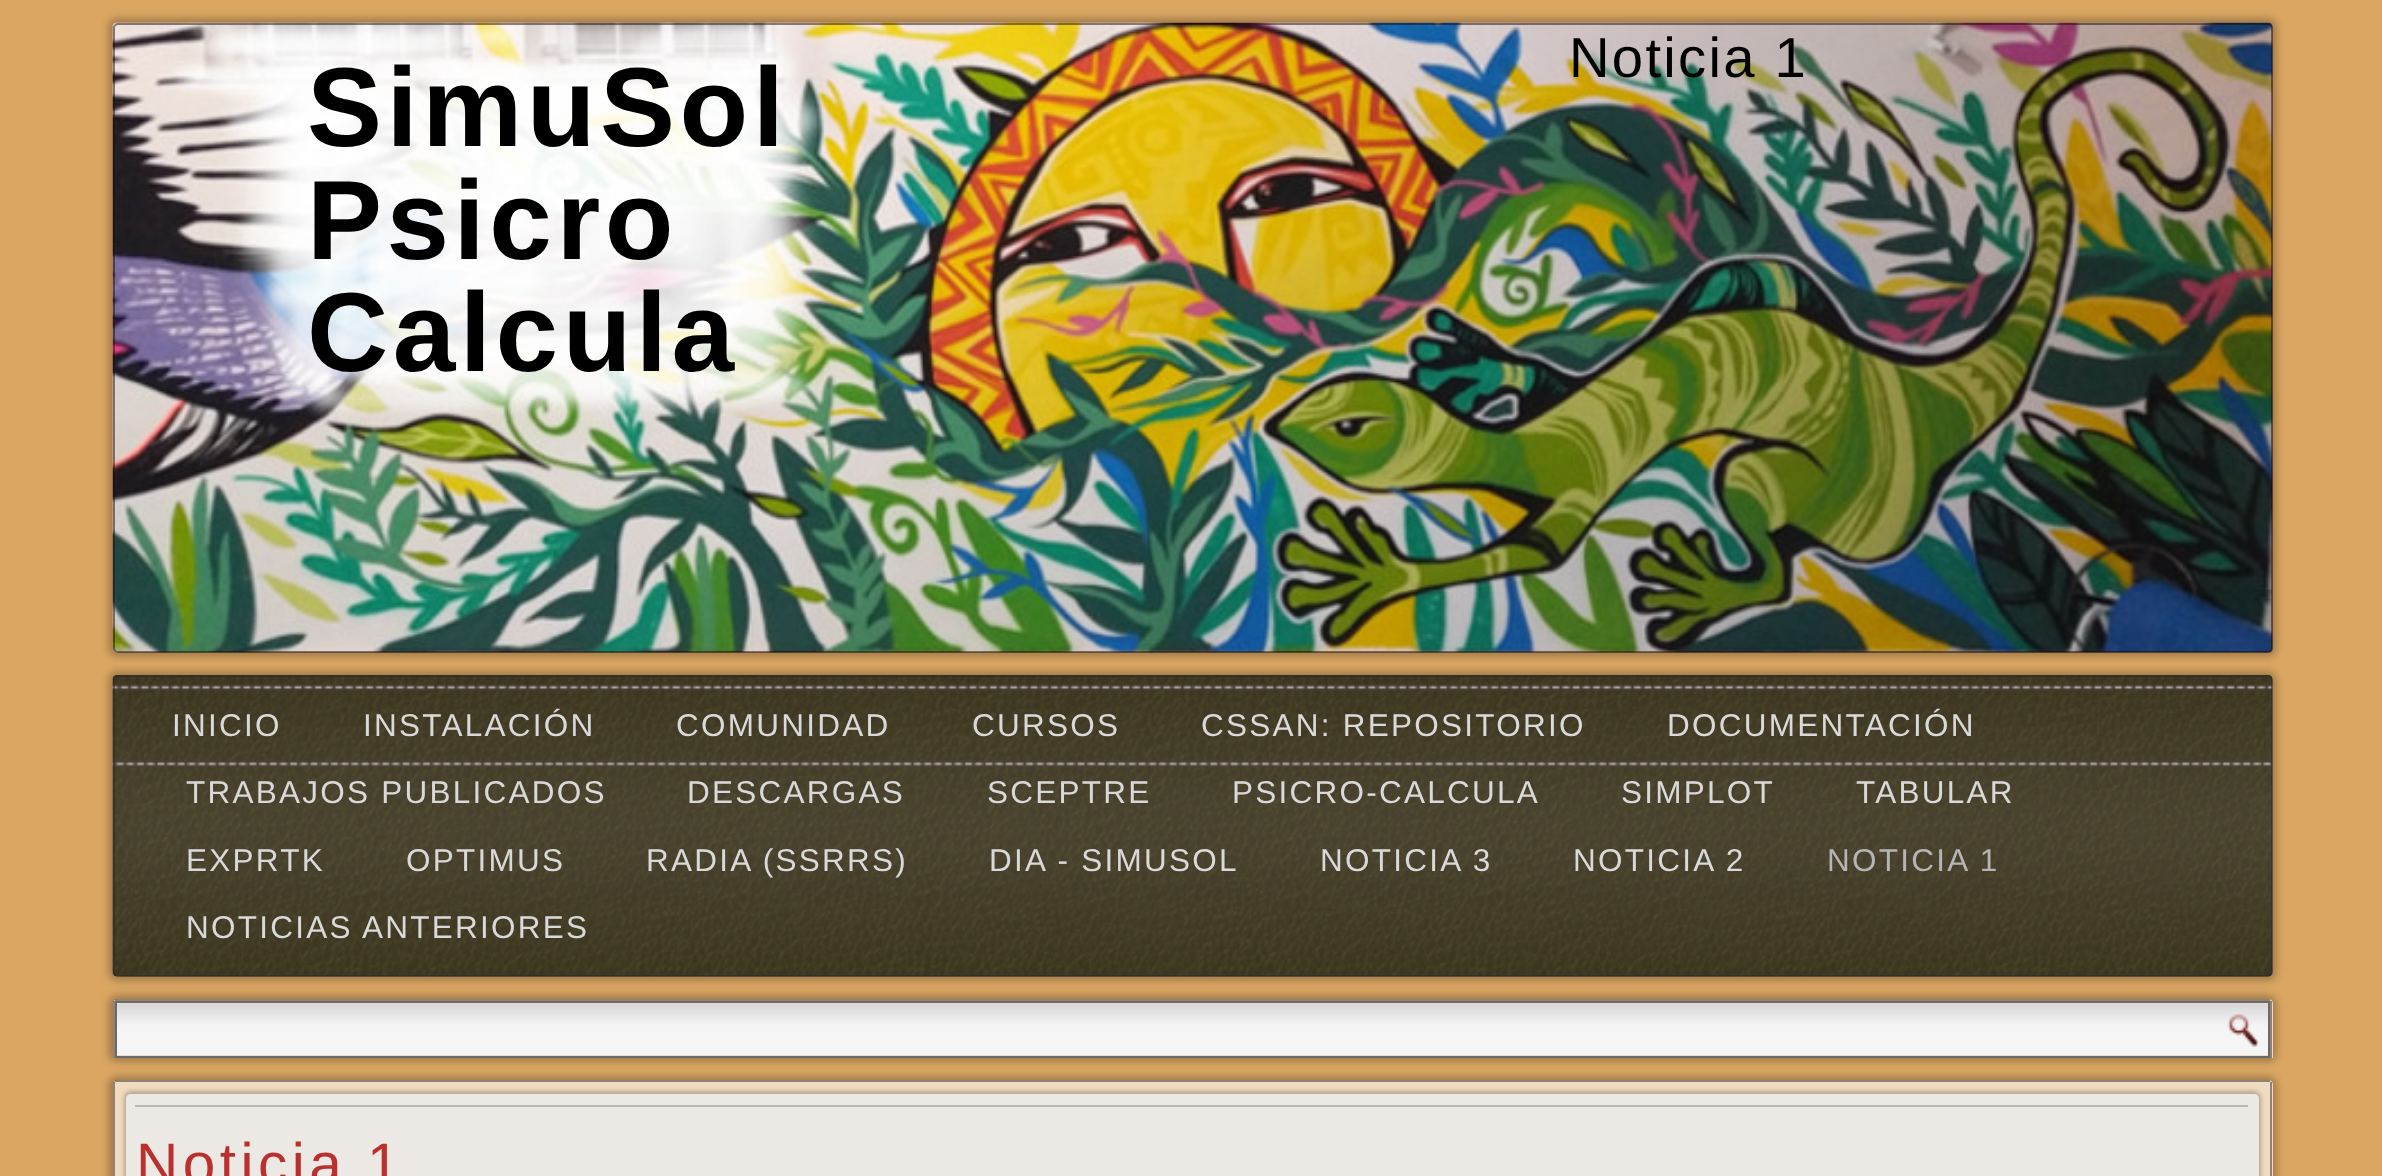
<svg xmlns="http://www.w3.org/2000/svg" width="2382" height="1176">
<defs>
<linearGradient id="g1" gradientUnits="userSpaceOnUse" x1="1191" y1="0" x2="1191" y2="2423"><stop offset="0" stop-color="#daa662"/><stop offset="0.58" stop-color="#daa662"/><stop offset="0.81" stop-color="#cf8a30"/><stop offset="0.97" stop-color="#a97128"/></linearGradient>
<clipPath id="clip1"><path d="M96 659h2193v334h-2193zm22 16h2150c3 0 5 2 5 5v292c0 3-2 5-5 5h-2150c-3 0-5-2-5-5v-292c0-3 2-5 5-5z" clip-rule="evenodd"/></clipPath>
<clipPath id="clip2"><path d="M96 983h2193v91h-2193zm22 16h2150c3 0 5 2 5 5v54h-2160v-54c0-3 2-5 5-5z" clip-rule="evenodd"/></clipPath>
<linearGradient id="g2" gradientUnits="userSpaceOnUse" x1="1193" y1="1003" x2="1193" y2="1055"><stop offset="0" stop-color="#d6d6d6"/><stop offset="0.4" stop-color="#f2f2f2"/><stop offset="0.5" stop-color="#f5f5f5"/><stop offset="1" stop-color="#f5f5f5"/></linearGradient>
<clipPath id="clip3"><path d="M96 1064h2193v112h-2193zm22 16h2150c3 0 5 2 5 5v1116h-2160v-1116c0-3 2-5 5-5z" clip-rule="evenodd"/></clipPath>
<clipPath id="clip4"><path d="M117 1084h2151v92h-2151zm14 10h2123c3 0 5 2 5 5v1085c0 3-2 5-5 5h-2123c-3 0-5-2-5-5v-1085c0-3 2-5 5-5z" clip-rule="evenodd"/></clipPath>
</defs>
<rect width="100%" height="100%" fill="#fff"/>
<rect width="2382" height="1176" fill="url(#g1)"/>
<rect x="108" y="18" width="2169" height="639" rx="9" fill="#0000003d" filter="blur(3.5px)"/>
<image x="112" y="22" width="2161" height="631" href="media/1.png"/>
<rect x="114" y="24" width="2158" height="628" rx="4" fill="none" stroke="#1d070780" stroke-width="2"/>
<text x="1569" y="77" style="font-family:Liberation Sans;font-size:56.25px;letter-spacing:2.25px;fill:#000">Noticia 1</text>
<text x="307" y="146" style="font-family:Liberation Sans;font-size:112.5px;font-weight:bold;letter-spacing:4.5px;fill:#000">SimuSol</text>
<text x="307" y="259" style="font-family:Liberation Sans;font-size:112.5px;font-weight:bold;letter-spacing:4.5px;fill:#000">Psicro</text>
<text x="307" y="371" style="font-family:Liberation Sans;font-size:112.5px;font-weight:bold;letter-spacing:4.5px;fill:#000">Calcula</text>
<g clip-path="url(#clip1)">
<rect x="108" y="671" width="2169" height="310" rx="9" fill="#0000003d" filter="blur(3.5px)"/>
</g>
<image x="112" y="675" width="2161" height="302" href="media/2.png"/>
<rect x="114" y="676" width="2158" height="300" rx="4" fill="none" stroke="#2b2b2b99" stroke-width="2"/>
<text x="172" y="736" style="font-family:Liberation Sans;font-size:31.5px;letter-spacing:2.25px;fill:#d9d9d9">INICIO</text>
<text x="363" y="736" style="font-family:Liberation Sans;font-size:31.5px;letter-spacing:2.25px;fill:#d9d9d9">INSTALACIÓN</text>
<text x="676" y="736" style="font-family:Liberation Sans;font-size:31.5px;letter-spacing:2.25px;fill:#d9d9d9">COMUNIDAD</text>
<text x="972" y="736" style="font-family:Liberation Sans;font-size:31.5px;letter-spacing:2.25px;fill:#d9d9d9">CURSOS</text>
<text x="1201" y="736" style="font-family:Liberation Sans;font-size:31.5px;letter-spacing:2.25px;fill:#d9d9d9">CSSAN: REPOSITORIO</text>
<text x="1667" y="736" style="font-family:Liberation Sans;font-size:31.5px;letter-spacing:2.25px;fill:#d9d9d9">DOCUMENTACIÓN</text>
<text x="186" y="803" style="font-family:Liberation Sans;font-size:31.5px;letter-spacing:2.25px;fill:#d9d9d9">TRABAJOS PUBLICADOS</text>
<text x="687" y="803" style="font-family:Liberation Sans;font-size:31.5px;letter-spacing:2.25px;fill:#d9d9d9">DESCARGAS</text>
<text x="987" y="803" style="font-family:Liberation Sans;font-size:31.5px;letter-spacing:2.25px;fill:#d9d9d9">SCEPTRE</text>
<text x="1232" y="803" style="font-family:Liberation Sans;font-size:31.5px;letter-spacing:2.25px;fill:#d9d9d9">PSICRO-CALCULA</text>
<text x="1621" y="803" style="font-family:Liberation Sans;font-size:31.5px;letter-spacing:2.25px;fill:#d9d9d9">SIMPLOT</text>
<text x="1856" y="803" style="font-family:Liberation Sans;font-size:31.5px;letter-spacing:2.25px;fill:#d9d9d9">TABULAR</text>
<text x="186" y="871" style="font-family:Liberation Sans;font-size:31.5px;letter-spacing:2.25px;fill:#d9d9d9">EXPRTK</text>
<text x="406" y="871" style="font-family:Liberation Sans;font-size:31.5px;letter-spacing:2.25px;fill:#d9d9d9">OPTIMUS</text>
<text x="646" y="871" style="font-family:Liberation Sans;font-size:31.5px;letter-spacing:2.25px;fill:#d9d9d9">RADIA (SSRRS)</text>
<text x="989" y="871" style="font-family:Liberation Sans;font-size:31.5px;letter-spacing:2.25px;fill:#d9d9d9">DIA - SIMUSOL</text>
<text x="1320" y="871" style="font-family:Liberation Sans;font-size:31.5px;letter-spacing:2.25px;fill:#d9d9d9">NOTICIA 3</text>
<text x="1573" y="871" style="font-family:Liberation Sans;font-size:31.5px;letter-spacing:2.25px;fill:#d9d9d9">NOTICIA 2</text>
<text x="1827" y="871" style="font-family:Liberation Sans;font-size:31.5px;letter-spacing:2.25px;fill:#b5b5b5">NOTICIA 1</text>
<text x="186" y="938" style="font-family:Liberation Sans;font-size:31.5px;letter-spacing:2.25px;fill:#d9d9d9">NOTICIAS ANTERIORES</text>
<g clip-path="url(#clip2)">
<rect x="108" y="995" width="2169" height="67" rx="9" fill="#0000003d" filter="blur(3.5px)"/>
</g>
<path d="M118 999h2150c3 0 5 2 5 5v54h-2160v-54c0-3 2-5 5-5z" fill="#ffffff99"/>
<rect x="115" y="999" width="2155" height="2" fill="#2b2b2b80"/>
<rect x="2270" y="1001" width="2" height="57" fill="#2b2b2b80"/>
<rect x="113" y="1001" width="2" height="57" fill="#2b2b2b80"/>
<rect x="117" y="1004" width="2151" height="51" fill="url(#g2)"/>
<rect x="116" y="1002" width="2153" height="55" fill="none" stroke="#6a6a6a" stroke-width="2"/>
<image x="2227" y="1014" width="33" height="33" href="media/3.png"/>
<g clip-path="url(#clip3)">
<rect x="108" y="1076" width="2169" height="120" rx="9" fill="#0000003d" filter="blur(3.5px)"/>
</g>
<path d="M118 1080h2150c3 0 5 2 5 5v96h-2160v-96c0-3 2-5 5-5z" fill="#ffffff99"/>
<rect x="115" y="1080" width="2155" height="2" fill="#2b2b2b80"/>
<rect x="2270" y="1082" width="2" height="94" fill="#8e8376"/>
<rect x="113" y="1082" width="2" height="94" fill="#2b2b2b80"/>
<g clip-path="url(#clip4)">
<rect x="124" y="1091" width="2137" height="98" rx="7" fill="#0000003d" filter="blur(2px)"/>
</g>
<rect x="126" y="1094" width="2133" height="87" rx="5" fill="#ebebebcc"/>
<rect x="135" y="1105" width="2113" height="2" fill="#b8b8b8"/>
<text x="136" y="1184" style="font-family:Liberation Sans;font-size:58.5px;letter-spacing:4.5px;fill:#bc2f2f">Noticia 1</text>
</svg>
